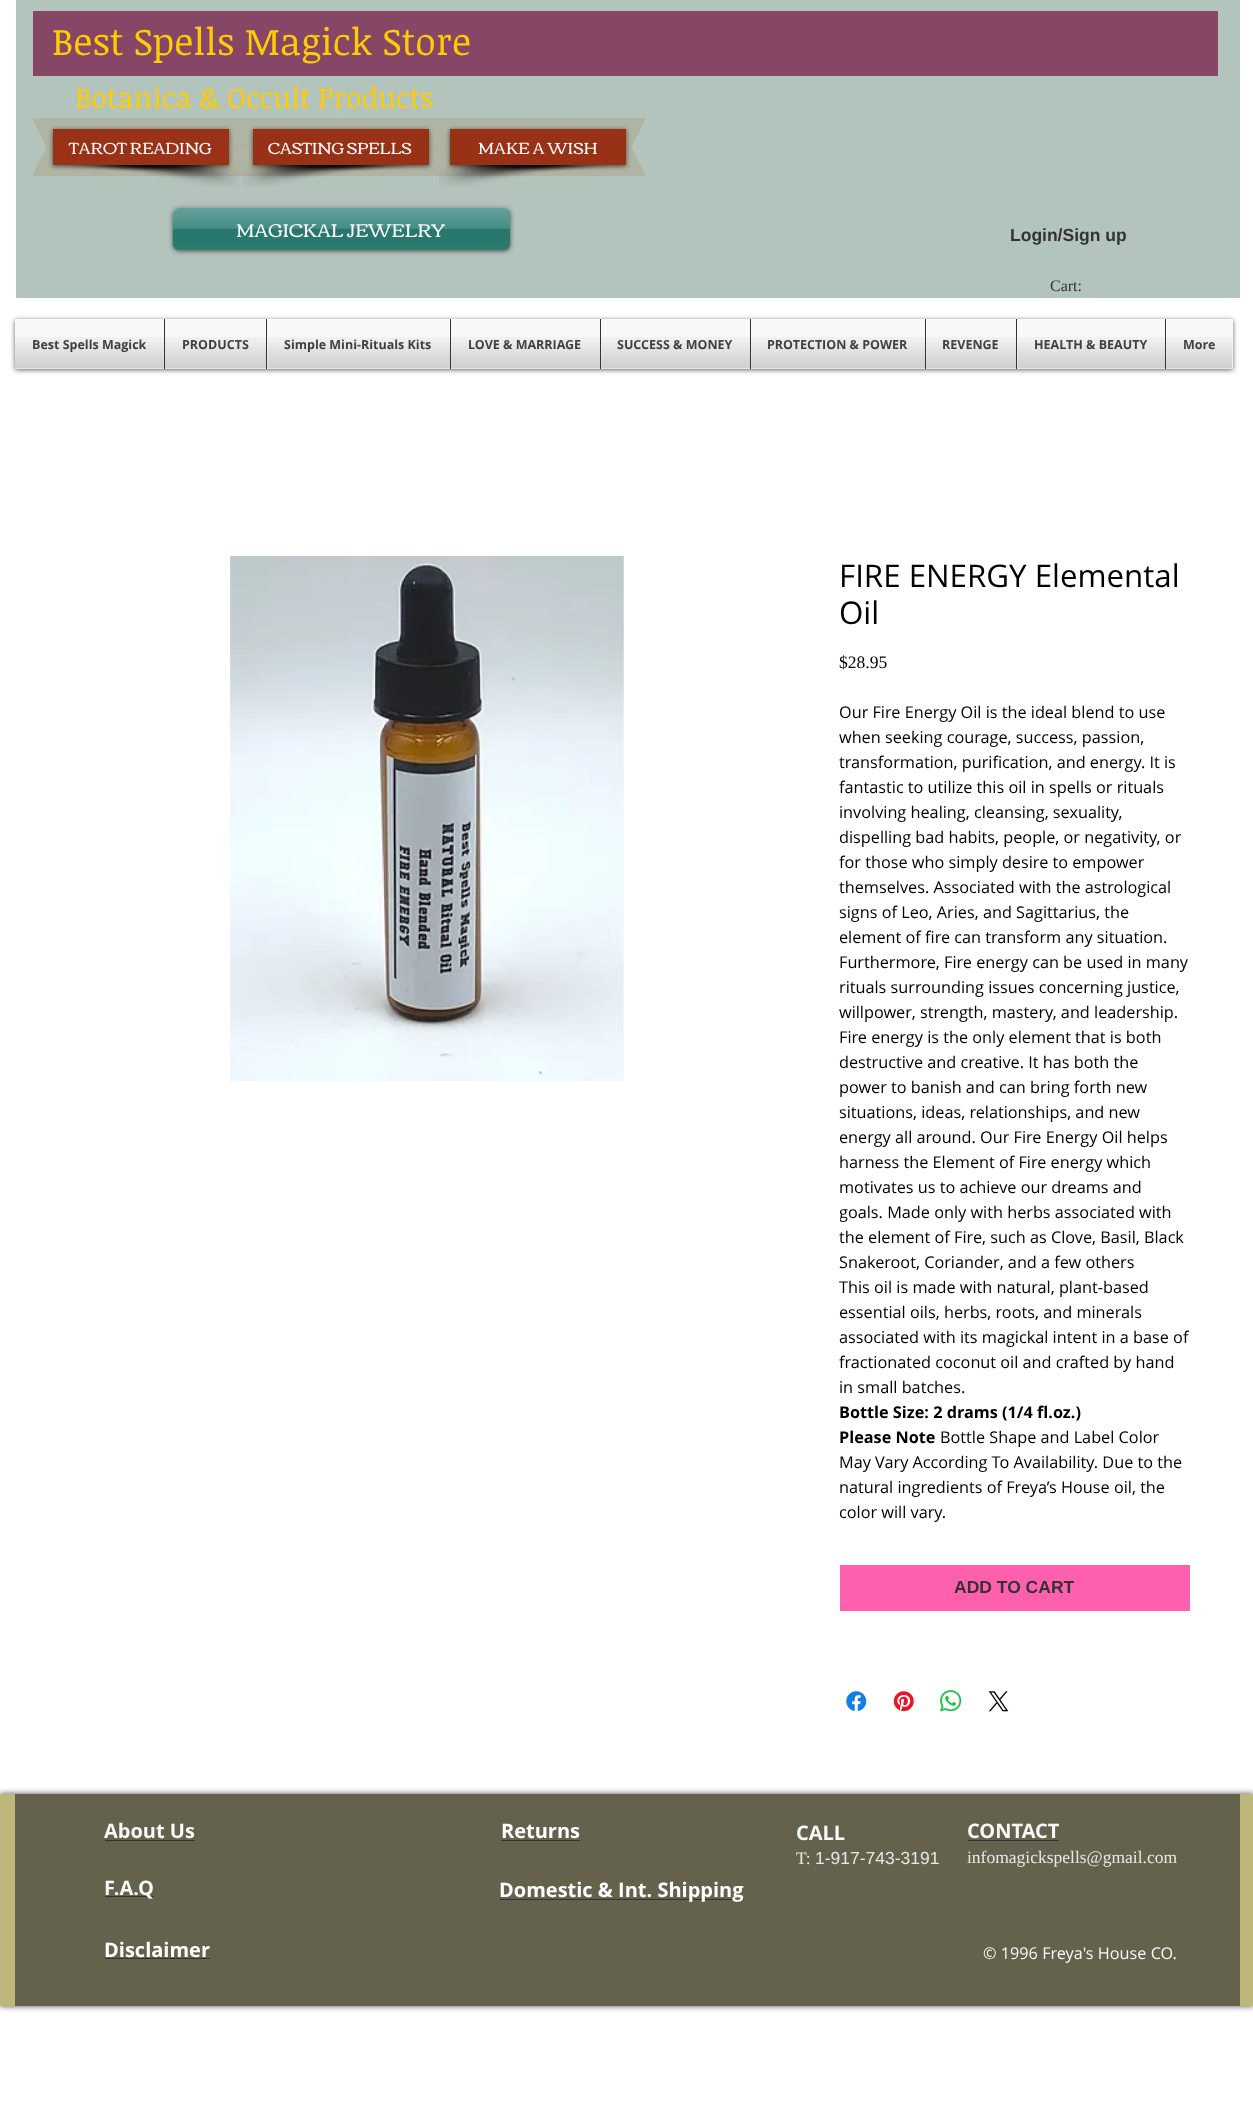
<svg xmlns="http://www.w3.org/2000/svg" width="1253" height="2106">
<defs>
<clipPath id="clip1"><rect x="33" y="118" width="307" height="30"/></clipPath>
<clipPath id="clip2"><rect x="339" y="118" width="307" height="30"/></clipPath>
<clipPath id="clip3"><rect x="33" y="146" width="307" height="30"/></clipPath>
<clipPath id="clip4"><rect x="339" y="146" width="307" height="30"/></clipPath>
<clipPath id="clip5"><rect x="840" y="700" width="350" height="825"/></clipPath>
</defs>
<rect width="100%" height="100%" fill="#fff"/>
<rect x="16" width="1224" height="298" fill="#b3c4bc"/>
<rect x="33" y="11" width="1185" height="65" fill="#854765"/>
<text x="52" y="55" style="font-family:Noticia Text;font-size:37.5px;fill:#ffcb05">Best Spells Magick Store</text>
<text x="75" y="108" style="font-family:Noticia Text;font-size:28.75px;fill:#ffcb05">Botanica &amp; Occult Products</text>
<g clip-path="url(#clip1)">
<path d="M32 118h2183l-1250 1250h-307z" fill="#b0b4a3"/>
</g>
<g clip-path="url(#clip2)">
<path d="M-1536 118h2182l-625 1250h-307z" fill="#afb19ed4"/>
</g>
<g clip-path="url(#clip3)">
<path d="M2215 176h-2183l626-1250h307z" fill="#afb19ed4"/>
</g>
<g clip-path="url(#clip4)">
<path d="M646 176h-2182l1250-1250h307z" fill="#afb19ed4"/>
</g>
<image x="48" y="165" width="191" height="22" href="media/1.png"/>
<rect x="53" y="130" width="176" height="36" fill="#00000099" filter="blur(2.5px)"/>
<rect x="53" y="129" width="176" height="36" fill="#993217"/>
<text x="69" y="154" style="font-family:Corben;font-size:16.25px;fill:#f8f8f8">TAROT READING</text>
<image x="242" y="165" width="191" height="22" href="media/2.png"/>
<rect x="253" y="130" width="176" height="36" fill="#00000099" filter="blur(2.5px)"/>
<rect x="253" y="129" width="176" height="36" fill="#993117"/>
<text x="268" y="154" style="font-family:Corben;font-size:16.25px;fill:#f8f8f8">CASTING SPELLS</text>
<image x="439" y="165" width="192" height="22" href="media/3.png"/>
<rect x="450" y="130" width="176" height="36" fill="#00000099" filter="blur(2.5px)"/>
<rect x="450" y="129" width="176" height="36" fill="#993117"/>
<text x="478" y="154" style="font-family:Corben;font-size:16.25px;fill:#f8f8f8">MAKE A WISH</text>
<rect x="173" y="209" width="337" height="42" rx="6" fill="#00000099" filter="blur(2.5px)"/>
<rect x="173" y="208" width="337" height="42" rx="6" fill="#2c7f75"/>
<image x="172" y="207" width="338" height="42" href="media/4.png"/>
<text x="236" y="237" style="font-family:Corben;font-size:18.75px;fill:#f8f8f8">MAGICKAL JEWELRY</text>
<text x="1010" y="241" style="font-family:Liberation Sans;font-size:17.5px;font-weight:bold;fill:#333">Login/Sign up</text>
<text x="1050" y="291" style="font-family:Liberation Serif;font-size:16px;fill:#333">Cart:</text>
<rect x="15" y="320" width="1218" height="50" fill="#00000099" filter="blur(2.5px)"/>
<rect x="15" y="319" width="149" height="50" fill="#f8f8f8"/>
<text x="32" y="349" style="font-family:Open Sans;font-size:12.5px;font-weight:bold;fill:#333">Best Spells Magick</text>
<image x="32" y="339" width="114" height="13" href="media/5.png"/>
<image x="15" y="337" width="149" height="32" href="media/6.png"/>
<rect x="165" y="319" width="101" height="50" fill="#f8f8f8"/>
<rect x="164" y="319" width="1" height="50" fill="#333"/>
<text x="182" y="349" style="font-family:Open Sans;font-size:12.5px;font-weight:bold;fill:#333">PRODUCTS</text>
<image x="182" y="340" width="66" height="9" href="media/7.png"/>
<image x="165" y="337" width="101" height="32" href="media/8.png"/>
<rect x="267" y="319" width="183" height="50" fill="#f8f8f8"/>
<rect x="266" y="319" width="1" height="50" fill="#333"/>
<text x="284" y="349" style="font-family:Open Sans;font-size:12.5px;font-weight:bold;fill:#333">Simple Mini-Rituals Kits</text>
<image x="285" y="339" width="146" height="13" href="media/9.png"/>
<image x="267" y="337" width="183" height="32" href="media/10.png"/>
<rect x="451" y="319" width="149" height="50" fill="#f8f8f8"/>
<rect x="450" y="319" width="1" height="50" fill="#333"/>
<text x="468" y="349" style="font-family:Open Sans;font-size:12.5px;font-weight:bold;fill:#333">LOVE &amp; MARRIAGE</text>
<image x="469" y="340" width="112" height="9" href="media/11.png"/>
<image x="451" y="337" width="149" height="32" href="media/12.png"/>
<rect x="601" y="319" width="149" height="50" fill="#f8f8f8"/>
<rect x="600" y="319" width="1" height="50" fill="#333"/>
<text x="617" y="349" style="font-family:Open Sans;font-size:12.5px;font-weight:bold;fill:#333">SUCCESS &amp; MONEY</text>
<image x="618" y="340" width="115" height="9" href="media/13.png"/>
<image x="601" y="337" width="149" height="32" href="media/14.png"/>
<rect x="751" y="319" width="174" height="50" fill="#f8f8f8"/>
<rect x="750" y="319" width="1" height="50" fill="#333"/>
<text x="767" y="349" style="font-family:Open Sans;font-size:12.5px;font-weight:bold;fill:#333">PROTECTION &amp; POWER</text>
<image x="768" y="340" width="140" height="9" href="media/15.png"/>
<image x="751" y="337" width="174" height="32" href="media/16.png"/>
<rect x="926" y="319" width="90" height="50" fill="#f8f8f8"/>
<rect x="925" y="319" width="1" height="50" fill="#333"/>
<text x="942" y="349" style="font-family:Open Sans;font-size:12.5px;font-weight:bold;fill:#333">REVENGE</text>
<image x="943" y="340" width="56" height="9" href="media/17.png"/>
<image x="926" y="337" width="90" height="32" href="media/18.png"/>
<rect x="1017" y="319" width="148" height="50" fill="#f8f8f8"/>
<rect x="1016" y="319" width="1" height="50" fill="#333"/>
<text x="1034" y="349" style="font-family:Open Sans;font-size:12.5px;font-weight:bold;fill:#333">HEALTH &amp; BEAUTY</text>
<image x="1035" y="340" width="112" height="9" href="media/19.png"/>
<image x="1017" y="337" width="148" height="32" href="media/20.png"/>
<rect x="1166" y="319" width="67" height="50" fill="#f8f8f8"/>
<rect x="1165" y="319" width="1" height="50" fill="#333"/>
<text x="1183" y="349" style="font-family:Open Sans;font-size:12.5px;font-weight:bold;fill:#333">More</text>
<image x="1183" y="340" width="32" height="9" href="media/21.png"/>
<image x="1166" y="337" width="67" height="32" href="media/22.png"/>
<image x="230" y="556" width="394" height="525" href="media/23.png"/>
<text x="839" y="587" style="font-family:Open Sans;font-size:31.25px;fill:#000">FIRE ENERGY Elemental</text>
<text x="839" y="624" style="font-family:Open Sans;font-size:31.25px;fill:#000">Oil</text>
<text x="839" y="668" style="font-family:Liberation Serif;font-size:17.5px;fill:#000">$28.95</text>
<text x="839" y="718" style="font-family:Open Sans;font-size:16.25px;fill:#000">Our Fire Energy Oil is the ideal blend to use</text>
<text x="839" y="743" style="font-family:Open Sans;font-size:16.25px;fill:#000">when seeking courage, success, passion,</text>
<text x="839" y="768" style="font-family:Open Sans;font-size:16.25px;fill:#000">transformation, purification, and energy. It is</text>
<text x="839" y="793" style="font-family:Open Sans;font-size:16.25px;fill:#000">fantastic to utilize this oil in spells or rituals</text>
<text x="839" y="818" style="font-family:Open Sans;font-size:16.25px;fill:#000">involving healing, cleansing, sexuality,</text>
<text x="839" y="843" style="font-family:Open Sans;font-size:16.25px;fill:#000">dispelling bad habits, people, or negativity, or</text>
<text x="839" y="868" style="font-family:Open Sans;font-size:16.25px;fill:#000">for those who simply desire to empower</text>
<text x="839" y="893" style="font-family:Open Sans;font-size:16.25px;fill:#000">themselves. Associated with the astrological</text>
<text x="839" y="918" style="font-family:Open Sans;font-size:16.25px;fill:#000">signs of Leo, Aries, and Sagittarius, the</text>
<text x="839" y="943" style="font-family:Open Sans;font-size:16.25px;fill:#000">element of fire can transform any situation.</text>
<text x="839" y="968" style="font-family:Open Sans;font-size:16.25px;fill:#000">Furthermore, Fire energy can be used in many</text>
<text x="839" y="993" style="font-family:Open Sans;font-size:16.25px;fill:#000">rituals surrounding issues concerning justice,</text>
<text x="839" y="1018" style="font-family:Open Sans;font-size:16.25px;fill:#000">willpower, strength, mastery, and leadership.</text>
<text x="839" y="1043" style="font-family:Open Sans;font-size:16.25px;fill:#000">Fire energy is the only element that is both</text>
<text x="839" y="1068" style="font-family:Open Sans;font-size:16.25px;fill:#000">destructive and creative. It has both the</text>
<text x="839" y="1093" style="font-family:Open Sans;font-size:16.25px;fill:#000">power to banish and can bring forth new</text>
<text x="839" y="1118" style="font-family:Open Sans;font-size:16.25px;fill:#000">situations, ideas, relationships, and new</text>
<text x="839" y="1143" style="font-family:Open Sans;font-size:16.25px;fill:#000">energy all around. Our Fire Energy Oil helps</text>
<text x="839" y="1168" style="font-family:Open Sans;font-size:16.25px;fill:#000">harness the Element of Fire energy which</text>
<text x="839" y="1193" style="font-family:Open Sans;font-size:16.25px;fill:#000">motivates us to achieve our dreams and</text>
<g clip-path="url(#clip5)">
<text x="839" y="1218" style="font-family:Open Sans;font-size:16.25px;fill:#000">goals. Made only with herbs associated with</text>
</g>
<text x="839" y="1243" style="font-family:Open Sans;font-size:16.25px;fill:#000">the element of Fire, such as Clove, Basil, Black</text>
<text x="839" y="1268" style="font-family:Open Sans;font-size:16.25px;fill:#000">Snakeroot, Coriander, and a few others</text>
<text x="839" y="1293" style="font-family:Open Sans;font-size:16.25px;fill:#000">This oil is made with natural, plant-based</text>
<text x="839" y="1318" style="font-family:Open Sans;font-size:16.25px;fill:#000">essential oils, herbs, roots, and minerals</text>
<text x="839" y="1343" style="font-family:Open Sans;font-size:16.25px;fill:#000">associated with its magickal intent in a base of</text>
<text x="839" y="1368" style="font-family:Open Sans;font-size:16.25px;fill:#000">fractionated coconut oil and crafted by hand</text>
<text x="839" y="1393" style="font-family:Open Sans;font-size:16.25px;fill:#000">in small batches.</text>
<text x="839" y="1418" style="font-family:Open Sans;font-size:16.25px;font-weight:bold;fill:#000">Bottle Size: 2 drams (1/4 fl.oz.)</text>
<text x="839" y="1443" style="font-family:Open Sans;font-size:16.25px;font-weight:bold;fill:#000">Please Note</text>
<text x="940" y="1443" style="font-family:Open Sans;font-size:16.25px;fill:#000">Bottle Shape and Label Color</text>
<text x="839" y="1468" style="font-family:Open Sans;font-size:16.25px;fill:#000">May Vary According To Availability. Due to the</text>
<text x="839" y="1493" style="font-family:Open Sans;font-size:16.25px;fill:#000">natural ingredients of Freya’s House oil, the</text>
<text x="839" y="1518" style="font-family:Open Sans;font-size:16.25px;fill:#000">color will vary.</text>
<rect x="840" y="1565" width="350" height="46" fill="#ff60ad"/>
<text x="954" y="1593" style="font-family:Liberation Sans;font-size:17.5px;font-weight:bold;fill:#333">ADD TO CART</text>
<image x="846" y="1691" width="21" height="21" href="media/24.png"/>
<image x="893" y="1691" width="21" height="21" href="media/25.png"/>
<image x="940" y="1690" width="22" height="22" href="media/26.png"/>
<image x="988" y="1691" width="21" height="21" href="media/27.png"/>
<rect y="1794" width="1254" height="212" fill="#000000b3" filter="blur(3px)"/>
<rect y="1794" width="1253" height="212" fill="#beb77b"/>
<rect x="15" y="1794" width="1225" height="212" fill="#64614c"/>
<text x="104" y="1838" style="font-family:Open Sans;font-size:20px;font-weight:bold;fill:#f8f8f8">About Us</text>
<rect x="105" y="1840" width="90" height="1" fill="#333"/>
<text x="501" y="1838" style="font-family:Open Sans;font-size:20px;font-weight:bold;fill:#fff">Returns</text>
<rect x="501" y="1840" width="79" height="1" fill="#333"/>
<text x="796" y="1840" style="font-family:Open Sans;font-size:20px;font-weight:bold;fill:#f8f8f8">CALL</text>
<text x="796" y="1864" style="font-family:Liberation Serif;font-size:17.5px;fill:#e8e8e8">T:</text>
<text x="815" y="1864" style="font-family:Liberation Sans;font-size:17.5px;fill:#e8e8e8">1-917-743-3191</text>
<text x="967" y="1838" style="font-family:Open Sans;font-size:20px;font-weight:bold;fill:#f8f8f8">CONTACT</text>
<rect x="968" y="1840" width="91" height="1" fill="#333"/>
<text x="967" y="1863" style="font-family:Liberation Serif;font-size:17.5px;fill:#e8e8e8">infomagickspells@gmail.com</text>
<rect x="105" y="1896" width="49" height="1" fill="#333"/>
<text x="104" y="1895" style="font-family:Open Sans;font-size:20px;font-weight:bold;fill:#f8f8f8">F.A.Q</text>
<rect x="500" y="1899" width="244" height="1" fill="#333"/>
<text x="499" y="1897" style="font-family:Open Sans;font-size:20px;font-weight:bold;fill:#fff">Domestic &amp; Int. Shipping</text>
<text x="104" y="1957" style="font-family:Open Sans;font-size:20px;font-weight:bold;fill:#fff">Disclaimer</text>
<rect x="105" y="1958" width="105" height="1" fill="#333"/>
<text x="983" y="1959" style="font-family:Open Sans;font-size:16.25px;fill:#f8f8f8">© 1996 Freya's House CO.</text>
</svg>
